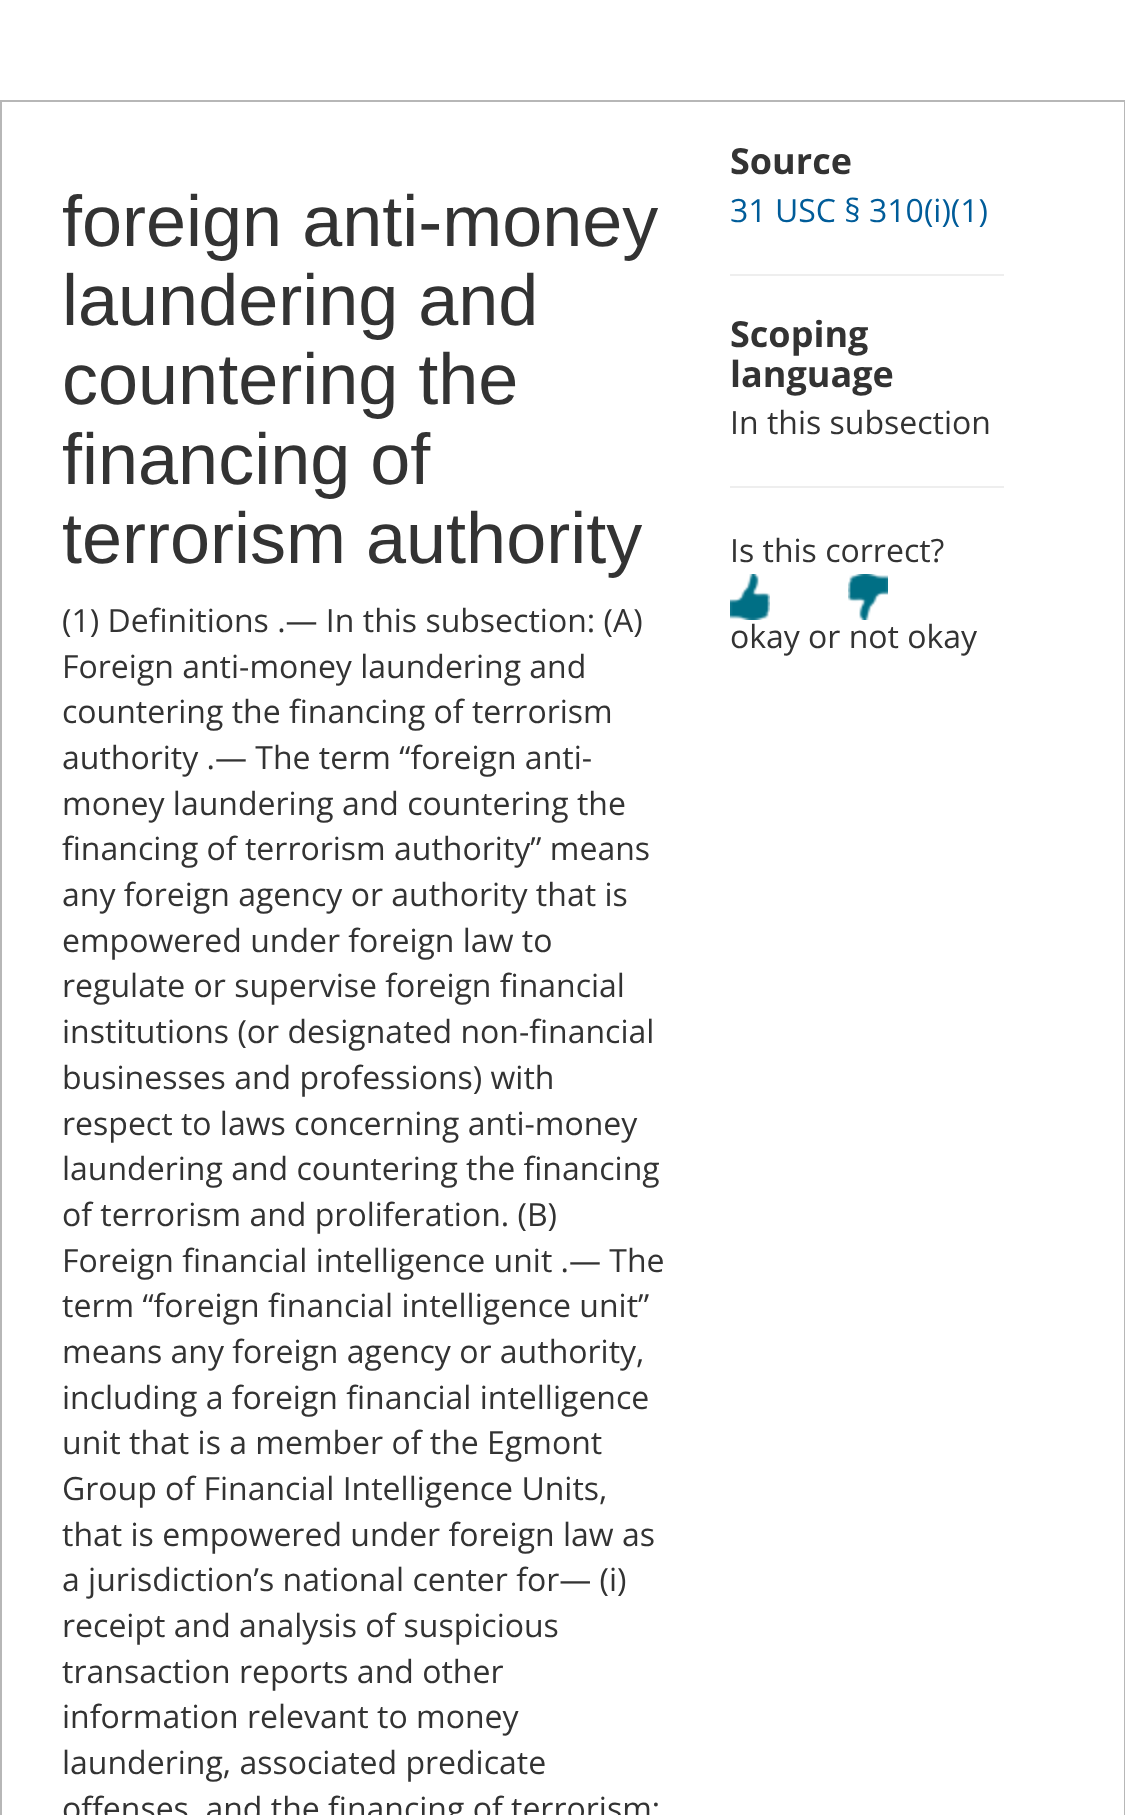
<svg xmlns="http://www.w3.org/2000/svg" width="1125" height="1815">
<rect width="100%" height="100%" fill="#fff"/>
<rect x="1" y="101" width="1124" height="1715" fill="none" stroke="#b7b7b7" stroke-width="2"/>
<text x="62" y="246" style="font-family:Liberation Sans;font-size:72px;fill:#333">foreign anti-money</text>
<text x="62" y="325" style="font-family:Liberation Sans;font-size:72px;fill:#333">laundering and</text>
<text x="62" y="404" style="font-family:Liberation Sans;font-size:72px;fill:#333">countering the</text>
<text x="62" y="484" style="font-family:Liberation Sans;font-size:72px;fill:#333">financing of</text>
<text x="62" y="563" style="font-family:Liberation Sans;font-size:72px;fill:#333">terrorism authority</text>
<text x="62" y="632" style="font-family:Open Sans;font-size:32px;fill:#333">(1) Definitions .— In this subsection: (A)</text>
<text x="62" y="678" style="font-family:Open Sans;font-size:32px;fill:#333">Foreign anti-money laundering and</text>
<text x="62" y="723" style="font-family:Open Sans;font-size:32px;fill:#333">countering the financing of terrorism</text>
<text x="62" y="769" style="font-family:Open Sans;font-size:32px;fill:#333">authority .— The term “foreign anti-</text>
<text x="62" y="815" style="font-family:Open Sans;font-size:32px;fill:#333">money laundering and countering the</text>
<text x="62" y="860" style="font-family:Open Sans;font-size:32px;fill:#333">financing of terrorism authority” means</text>
<text x="62" y="906" style="font-family:Open Sans;font-size:32px;fill:#333">any foreign agency or authority that is</text>
<text x="62" y="952" style="font-family:Open Sans;font-size:32px;fill:#333">empowered under foreign law to</text>
<text x="62" y="997" style="font-family:Open Sans;font-size:32px;fill:#333">regulate or supervise foreign financial</text>
<text x="62" y="1043" style="font-family:Open Sans;font-size:32px;fill:#333">institutions (or designated non-financial</text>
<text x="62" y="1089" style="font-family:Open Sans;font-size:32px;fill:#333">businesses and professions) with</text>
<text x="62" y="1135" style="font-family:Open Sans;font-size:32px;fill:#333">respect to laws concerning anti-money</text>
<text x="62" y="1180" style="font-family:Open Sans;font-size:32px;fill:#333">laundering and countering the financing</text>
<text x="62" y="1226" style="font-family:Open Sans;font-size:32px;fill:#333">of terrorism and proliferation. (B)</text>
<text x="62" y="1272" style="font-family:Open Sans;font-size:32px;fill:#333">Foreign financial intelligence unit .— The</text>
<text x="62" y="1317" style="font-family:Open Sans;font-size:32px;fill:#333">term “foreign financial intelligence unit”</text>
<text x="62" y="1363" style="font-family:Open Sans;font-size:32px;fill:#333">means any foreign agency or authority,</text>
<text x="62" y="1409" style="font-family:Open Sans;font-size:32px;fill:#333">including a foreign financial intelligence</text>
<text x="62" y="1454" style="font-family:Open Sans;font-size:32px;fill:#333">unit that is a member of the Egmont</text>
<text x="62" y="1500" style="font-family:Open Sans;font-size:32px;fill:#333">Group of Financial Intelligence Units,</text>
<text x="62" y="1546" style="font-family:Open Sans;font-size:32px;fill:#333">that is empowered under foreign law as</text>
<text x="62" y="1591" style="font-family:Open Sans;font-size:32px;fill:#333">a jurisdiction’s national center for— (i)</text>
<text x="62" y="1637" style="font-family:Open Sans;font-size:32px;fill:#333">receipt and analysis of suspicious</text>
<text x="62" y="1683" style="font-family:Open Sans;font-size:32px;fill:#333">transaction reports and other</text>
<text x="62" y="1728" style="font-family:Open Sans;font-size:32px;fill:#333">information relevant to money</text>
<text x="62" y="1774" style="font-family:Open Sans;font-size:32px;fill:#333">laundering, associated predicate</text>
<text x="62" y="1820" style="font-family:Open Sans;font-size:32px;fill:#333">offenses, and the financing of terrorism;</text>
<text x="730" y="174" style="font-family:Open Sans;font-size:36px;font-weight:bold;fill:#333">Source</text>
<text x="730" y="222" style="font-family:Open Sans;font-size:32px;fill:#005c99">31 USC § 310(i)(1)</text>
<rect x="730" y="274" width="274" height="2" fill="#eee"/>
<text x="730" y="347" style="font-family:Open Sans;font-size:36px;font-weight:bold;fill:#333">Scoping</text>
<text x="730" y="387" style="font-family:Open Sans;font-size:36px;font-weight:bold;fill:#333">language</text>
<text x="730" y="434" style="font-family:Open Sans;font-size:32px;fill:#333">In this subsection</text>
<rect x="730" y="486" width="274" height="2" fill="#eee"/>
<text x="730" y="562" style="font-family:Open Sans;font-size:32px;fill:#333">Is this correct?</text>
<image x="848" y="574" width="40" height="46" href="media/1.png"/>
<image x="730" y="574" width="40" height="46" href="media/2.png"/>
<text x="730" y="648" style="font-family:Open Sans;font-size:32px;fill:#333">okay</text>
<text x="808" y="648" style="font-family:Open Sans;font-size:32px;fill:#333">or not okay</text>
</svg>
